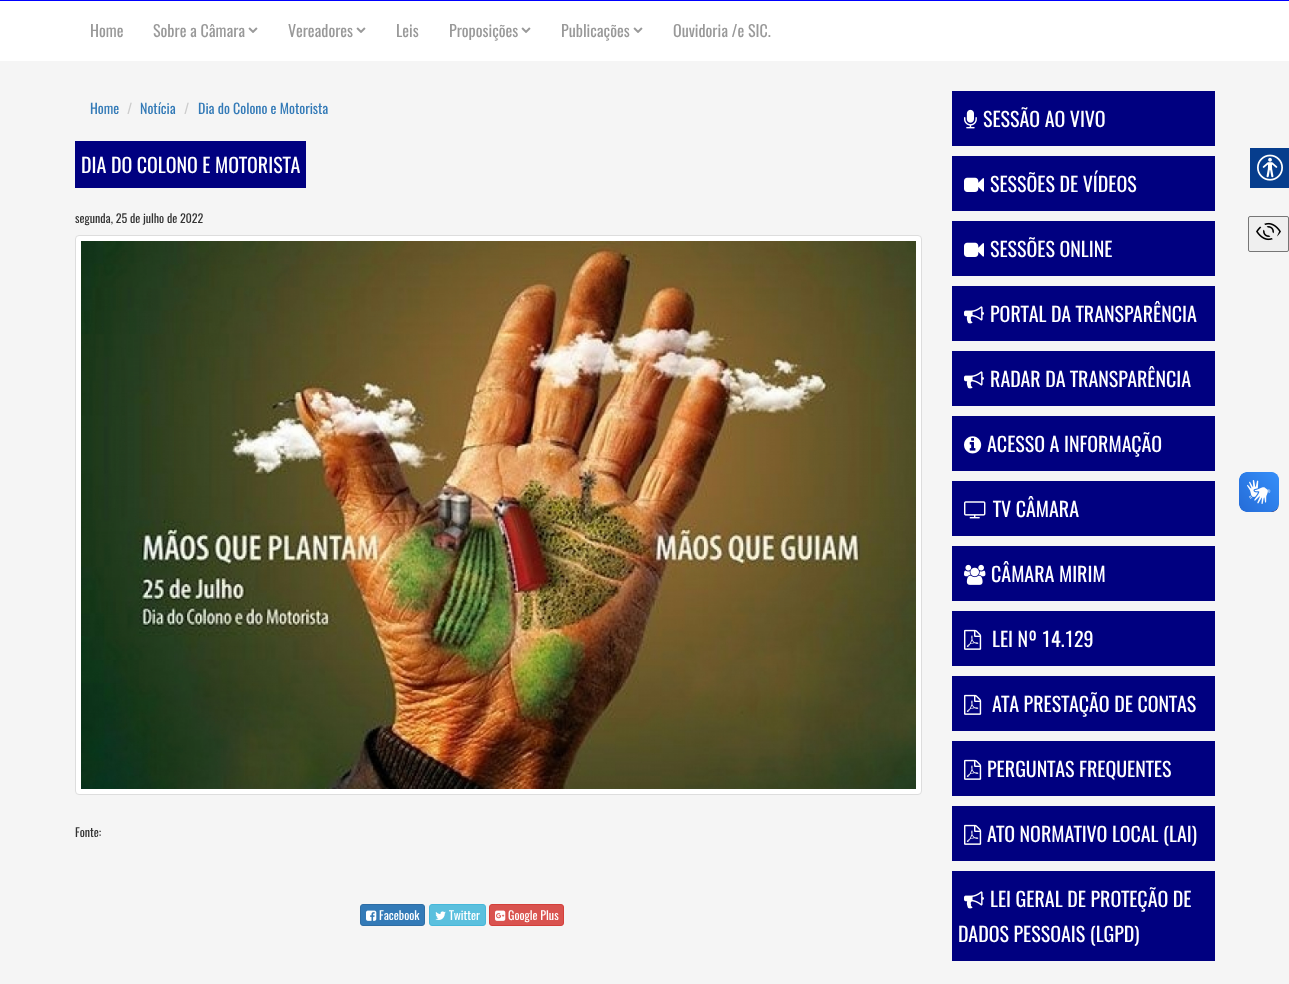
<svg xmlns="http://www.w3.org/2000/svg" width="1289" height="984">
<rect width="100%" height="100%" fill="#f5f5f5"/>
<rect width="1289" height="1" fill="#00f"/>
<rect y="1" width="1289" height="60" fill="#fff"/>
<text x="90" y="37" style="font-family:Oswald;font-size:16px;fill:#999">Home</text>
<text x="153" y="37" style="font-family:Oswald;font-size:16px;fill:#999">Sobre a Câmara</text>
<image x="248" y="27" width="10" height="6" href="media/1.png"/>
<text x="288" y="37" style="font-family:Oswald;font-size:16px;fill:#999">Vereadores</text>
<image x="356" y="27" width="10" height="6" href="media/1.png"/>
<text x="396" y="37" style="font-family:Oswald;font-size:16px;fill:#999">Leis</text>
<text x="449" y="37" style="font-family:Oswald;font-size:16px;fill:#999">Proposições</text>
<image x="521" y="27" width="10" height="6" href="media/1.png"/>
<text x="561" y="37" style="font-family:Oswald;font-size:16px;fill:#999">Publicações</text>
<image x="633" y="27" width="10" height="6" href="media/1.png"/>
<text x="673" y="37" style="font-family:Oswald;font-size:16px;fill:#999">Ouvidoria /e SIC.</text>
<text x="90" y="114" style="font-family:Oswald;font-size:14px;fill:#337ab7">Home</text>
<text x="127" y="114" style="font-family:Oswald;font-size:14px;fill:#ccc">/</text>
<text x="140" y="114" style="font-family:Oswald;font-size:14px;fill:#337ab7">Notícia</text>
<text x="184" y="114" style="font-family:Oswald;font-size:14px;fill:#ccc">/</text>
<text x="198" y="114" style="font-family:Oswald;font-size:14px;fill:#337ab7">Dia do Colono e Motorista</text>
<rect x="75" y="141" width="231" height="47" fill="#000080"/>
<text x="81" y="173" style="font-family:Oswald;font-size:20px;fill:#fff">DIA DO COLONO E MOTORISTA</text>
<text x="75" y="223" style="font-family:Oswald;font-size:12px;fill:#333">segunda, 25 de julho de 2022</text>
<rect x="75.5" y="235.5" width="846" height="559" rx="3.5" fill="#fff" stroke="#ddd"/>
<image x="81" y="241" width="835" height="548" href="media/2.png"/>
<text x="75" y="837" style="font-family:Oswald;font-size:12px;fill:#333">Fonte:</text>
<rect x="360.5" y="904.5" width="64" height="21" rx="2.5" fill="#337ab7" stroke="#2e6da4"/>
<image x="366" y="910" width="11" height="11" href="media/3.png"/>
<text x="379" y="920" style="font-family:Oswald;font-size:12px;fill:#fff">Facebook</text>
<rect x="429.5" y="904.5" width="56" height="21" rx="2.5" fill="#5bc0de" stroke="#46b8da"/>
<image x="435" y="911" width="11" height="9" href="media/4.png"/>
<text x="449" y="920" style="font-family:Oswald;font-size:12px;fill:#fff">Twitter</text>
<rect x="489.5" y="904.5" width="74" height="21" rx="2.5" fill="#d9534f" stroke="#d43f3a"/>
<image x="495" y="910" width="11" height="11" href="media/5.png"/>
<text x="508" y="920" style="font-family:Oswald;font-size:12px;fill:#fff">Google Plus</text>
<rect x="952" y="91" width="263" height="55" fill="#000080"/>
<image x="964" y="109" width="13" height="20" href="media/6.png"/>
<text x="983" y="127" style="font-family:Oswald;font-size:20px;fill:#fff">SESSÃO AO VIVO</text>
<rect x="952" y="156" width="263" height="55" fill="#000080"/>
<image x="964" y="177" width="20" height="15" href="media/7.png"/>
<text x="990" y="192" style="font-family:Oswald;font-size:20px;fill:#fff">SESSÕES DE VÍDEOS</text>
<rect x="952" y="221" width="263" height="55" fill="#000080"/>
<image x="964" y="242" width="20" height="15" href="media/7.png"/>
<text x="990" y="257" style="font-family:Oswald;font-size:20px;fill:#fff">SESSÕES ONLINE</text>
<rect x="952" y="286" width="263" height="55" fill="#000080"/>
<image x="964" y="306" width="20" height="18" href="media/8.png"/>
<text x="990" y="322" style="font-family:Oswald;font-size:20px;fill:#fff">PORTAL DA TRANSPARÊNCIA</text>
<rect x="952" y="351" width="263" height="55" fill="#000080"/>
<image x="964" y="371" width="20" height="18" href="media/8.png"/>
<text x="990" y="387" style="font-family:Oswald;font-size:20px;fill:#fff">RADAR DA TRANSPARÊNCIA</text>
<rect x="952" y="416" width="263" height="55" fill="#000080"/>
<image x="964" y="436" width="18" height="18" href="media/9.png"/>
<text x="987" y="452" style="font-family:Oswald;font-size:20px;fill:#fff">ACESSO A INFORMAÇÃO</text>
<rect x="952" y="481" width="263" height="55" fill="#000080"/>
<image x="964" y="501" width="22" height="18" href="media/10.png"/>
<text x="993" y="517" style="font-family:Oswald;font-size:20px;fill:#fff">TV CÂMARA</text>
<rect x="952" y="546" width="263" height="55" fill="#000080"/>
<image x="964" y="564" width="22" height="21" href="media/11.png"/>
<text x="991" y="582" style="font-family:Oswald;font-size:20px;fill:#fff">CÂMARA MIRIM</text>
<rect x="952" y="611" width="263" height="55" fill="#000080"/>
<image x="964" y="629" width="18" height="21" href="media/12.png"/>
<text x="992" y="647" style="font-family:Oswald;font-size:20px;fill:#fff">LEI Nº 14.129</text>
<rect x="952" y="676" width="263" height="55" fill="#000080"/>
<image x="964" y="694" width="18" height="21" href="media/12.png"/>
<text x="992" y="712" style="font-family:Oswald;font-size:20px;fill:#fff">ATA PRESTAÇÃO DE CONTAS</text>
<rect x="952" y="741" width="263" height="55" fill="#000080"/>
<image x="964" y="759" width="18" height="21" href="media/12.png"/>
<text x="987" y="777" style="font-family:Oswald;font-size:20px;fill:#fff">PERGUNTAS FREQUENTES</text>
<rect x="952" y="806" width="263" height="55" fill="#000080"/>
<image x="964" y="824" width="18" height="21" href="media/12.png"/>
<text x="987" y="842" style="font-family:Oswald;font-size:20px;fill:#fff">ATO NORMATIVO LOCAL (LAI)</text>
<rect x="952" y="871" width="263" height="90" fill="#000080"/>
<image x="964" y="891" width="20" height="18" href="media/8.png"/>
<text x="990" y="907" style="font-family:Oswald;font-size:20px;fill:#fff">LEI GERAL DE PROTEÇÃO DE</text>
<text x="958" y="942" style="font-family:Oswald;font-size:20px;fill:#fff">DADOS PESSOAIS (LGPD)</text>
<rect x="1250" y="148" width="39" height="40" fill="#063d8d"/>
<image x="1257" y="154" width="26" height="27" href="media/13.png"/>
<rect x="1248.5" y="216.5" width="40" height="35" rx="1.5" fill="#efefef" stroke="#767676"/>
<image x="1256" y="222" width="25" height="19" href="media/14.png"/>
<image x="1239" y="472" width="40" height="40" href="media/15.png"/>
<image x="1239" y="472" width="40" height="40" href="media/16.png"/>
</svg>
